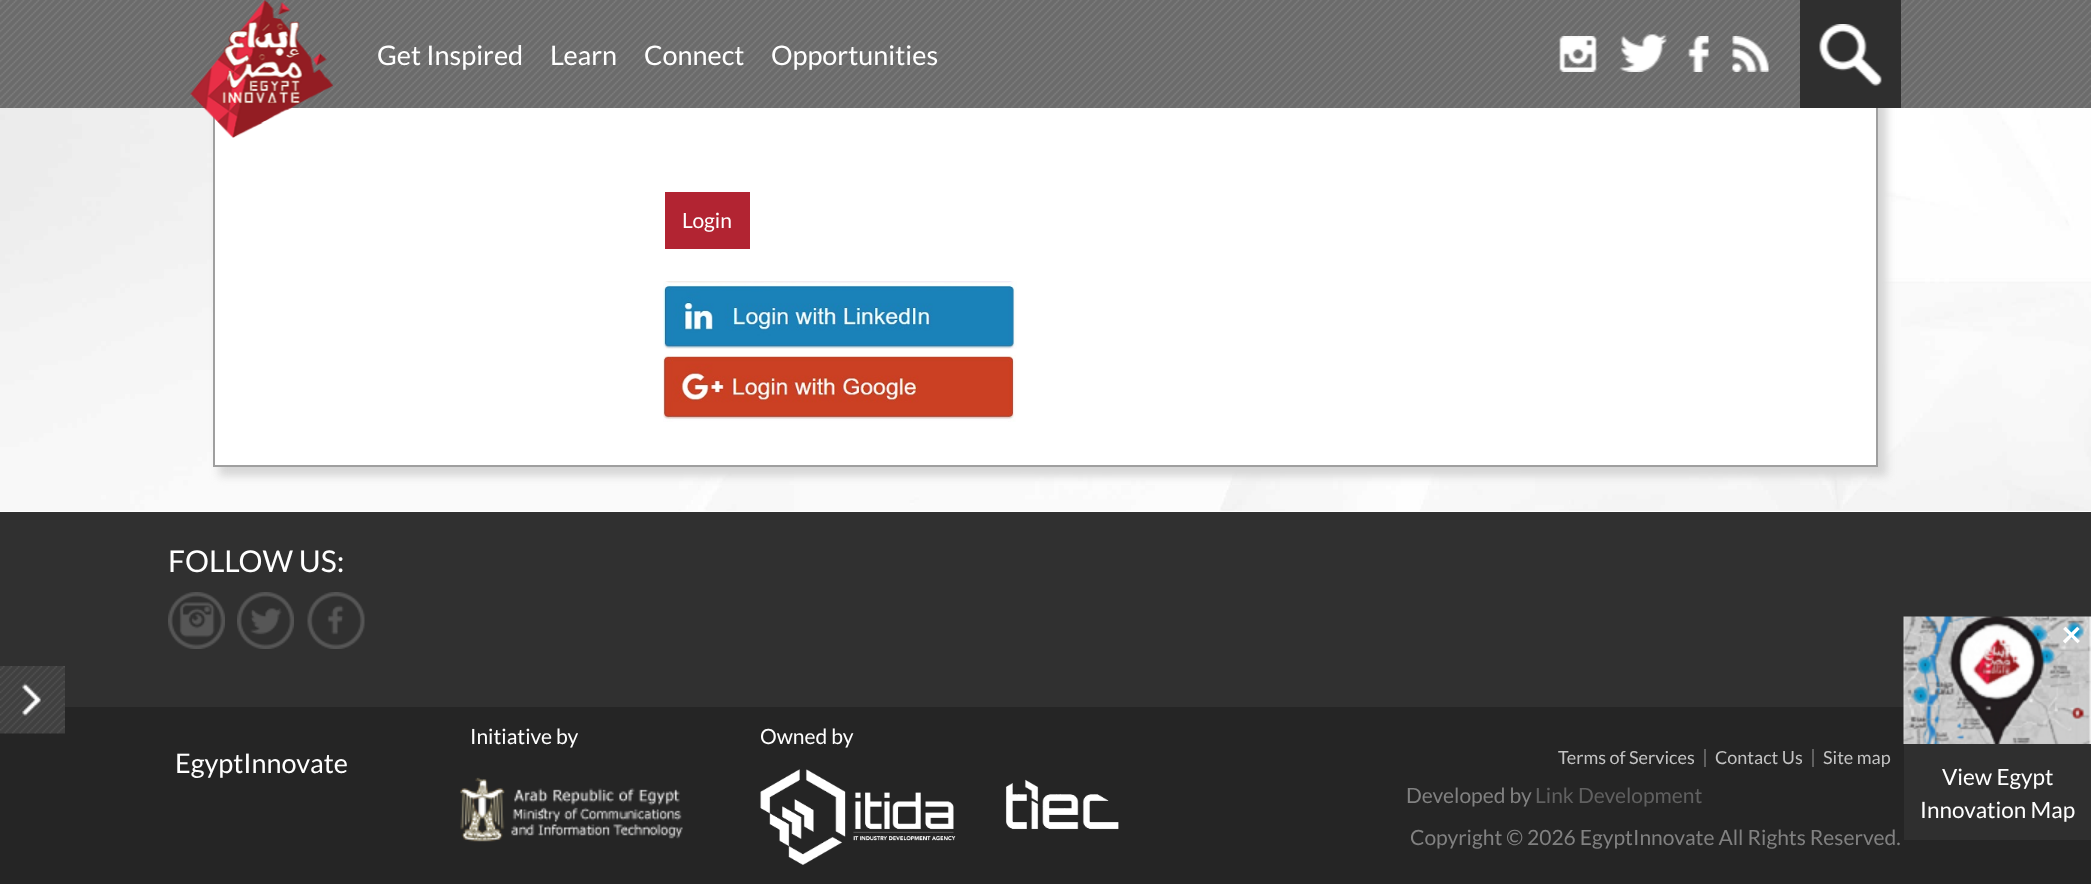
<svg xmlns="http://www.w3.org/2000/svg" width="2091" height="884">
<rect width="100%" height="100%" fill="#fff"/>
<image x="0" y="108" width="2091" height="403" href="media/8.png"/>
<rect x="219" y="-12" width="1668" height="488" fill="#d6d6d6" filter="blur(4px)"/>
<rect x="215" y="108" width="1661" height="357" fill="#fff"/>
<rect x="214" y="-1" width="1663" height="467" fill="none" stroke="#9f9f9f" stroke-width="2"/>
<rect width="2091" height="108" fill="#6b6b6b"/>
<image x="0" y="0" width="2091" height="108" href="media/1.png"/>
<image x="190" y="0" width="143" height="138" href="media/2.png"/>
<text x="377" y="65" style="font-family:Lato;font-size:27px;fill:#fff">Get Inspired</text>
<text x="550" y="65" style="font-family:Lato;font-size:27px;fill:#fff">Learn</text>
<text x="644" y="65" style="font-family:Lato;font-size:27px;fill:#fff">Connect</text>
<text x="771" y="65" style="font-family:Lato;font-size:27px;fill:#fff">Opportunities</text>
<image x="1559" y="36" width="38" height="36" href="media/3.png"/>
<image x="1619" y="34" width="48" height="38" href="media/4.png"/>
<image x="1688" y="36" width="21" height="36" href="media/5.png"/>
<image x="1732" y="36" width="37" height="36" href="media/6.png"/>
<rect x="1800" width="101" height="108" fill="#2f2f2f"/>
<image x="1819" y="24" width="63" height="62" href="media/7.png"/>
<rect x="665" y="192" width="85" height="57" fill="#b22432"/>
<text x="682" y="228" style="font-family:Lato;font-size:21px;fill:#fff">Login</text>
<image x="663" y="281" width="354" height="68" href="media/9.png"/>
<image x="663" y="355" width="353" height="67" href="media/10.png"/>
<rect y="512" width="2091" height="195" fill="#303030"/>
<rect y="707" width="2091" height="177" fill="#252525"/>
<image x="0" y="666" width="65" height="68" href="media/11.png"/>
<image x="1903" y="616" width="188" height="128" href="media/12.png"/>
<text x="2061" y="647" style="font-family:Lato;font-size:36px;font-weight:bold;fill:#fff">×</text>
<rect x="1904" y="744" width="187" height="96" fill="#2f2f2f"/>
<text x="1942" y="785" style="font-family:Lato;font-size:22.5px;fill:#fff">View Egypt</text>
<text x="1920" y="818" style="font-family:Lato;font-size:22.5px;fill:#fff">Innovation Map</text>
<text x="168" y="572" style="font-family:Lato;font-size:30px;fill:#fff">FOLLOW US:</text>
<image x="168" y="592" width="57" height="57" href="media/13.png"/>
<image x="237" y="592" width="57" height="57" href="media/14.png"/>
<image x="307" y="592" width="58" height="57" href="media/15.png"/>
<text x="470" y="744" style="font-family:Lato;font-size:21px;fill:#fff">Initiative by</text>
<image x="460" y="777" width="223" height="65" href="media/16.png"/>
<text x="760" y="744" style="font-family:Lato;font-size:21px;fill:#fff">Owned by</text>
<image x="760" y="769" width="359" height="96" href="media/17.png"/>
<text x="175" y="773" style="font-family:Lato;font-size:27px;fill:#fff">EgyptInnovate</text>
<rect x="1704" y="749" width="2" height="18" fill="#606060"/>
<text x="1558" y="764" style="font-family:Lato;font-size:18px;fill:#c3c3c3">Terms of Services</text>
<rect x="1812" y="749" width="2" height="18" fill="#606060"/>
<text x="1715" y="764" style="font-family:Lato;font-size:18px;fill:#c3c3c3">Contact Us</text>
<text x="1823" y="764" style="font-family:Lato;font-size:18px;fill:#c3c3c3">Site map</text>
<text x="1406" y="803" style="font-family:Lato;font-size:21px;fill:#818181">Developed by</text>
<text x="1535" y="803" style="font-family:Lato;font-size:21px;fill:#606060">Link Development</text>
<text x="1410" y="845" style="font-family:Lato;font-size:21px;fill:#818181">Copyright © 2026 EgyptInnovate All Rights Reserved.</text>
</svg>
